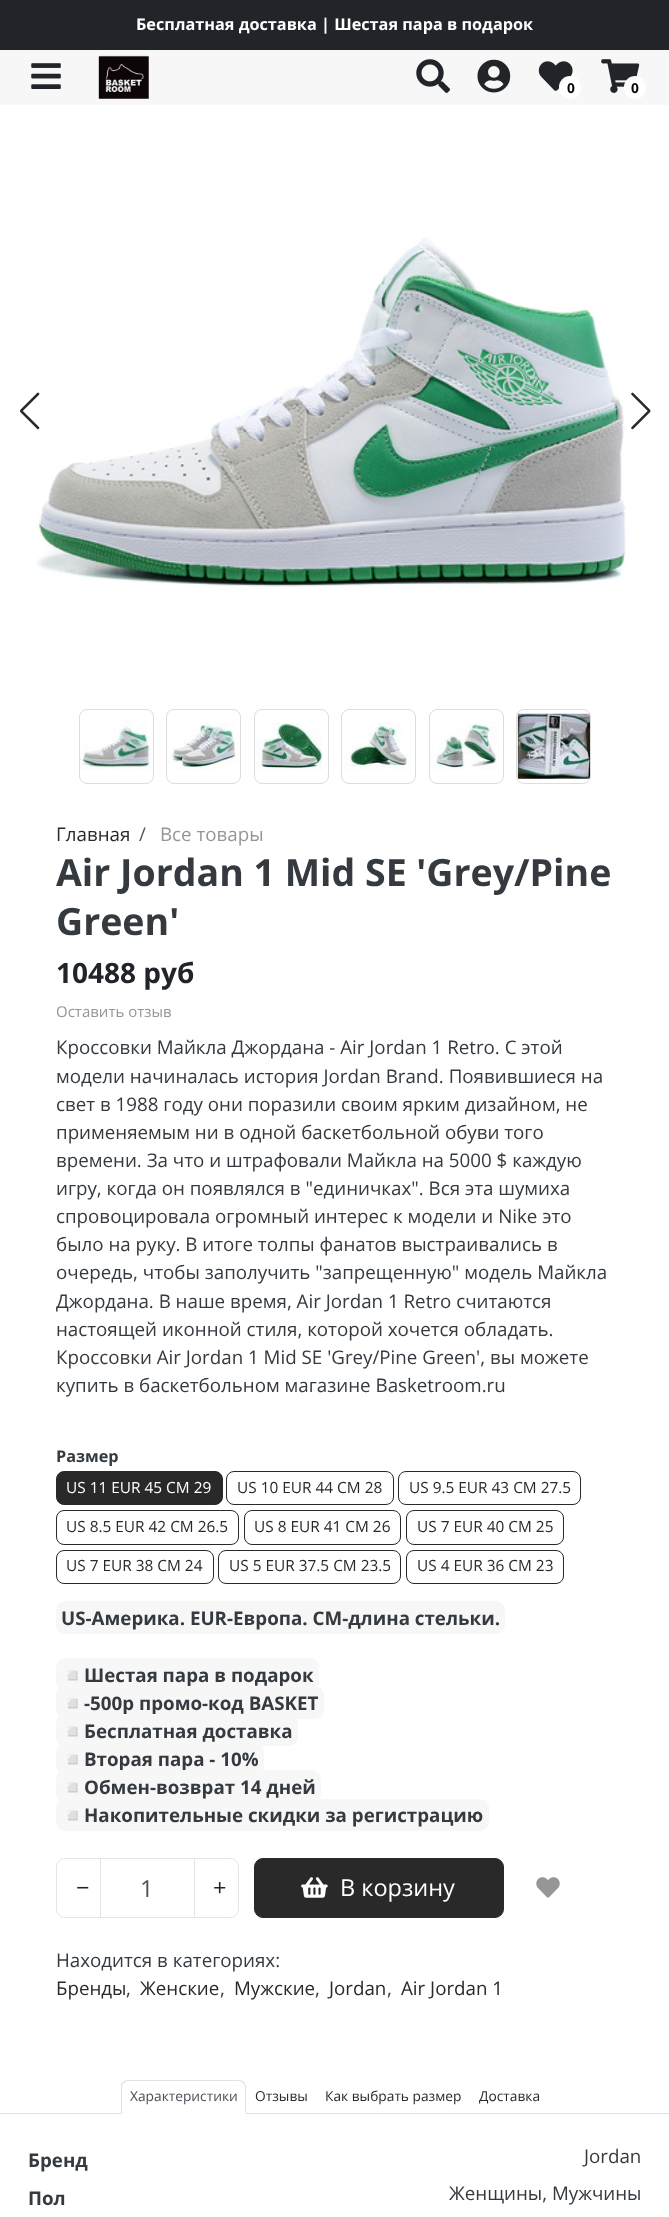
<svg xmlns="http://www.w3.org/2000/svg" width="669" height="2217">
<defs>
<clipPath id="clip1"><rect x="56" y="1034" width="559" height="384"/></clipPath>
</defs>
<rect width="100%" height="100%" fill="#fff"/>
<rect width="669" height="50" fill="#212529"/>
<text x="136" y="30" style="font-family:Open Sans;font-size:16.25px;font-weight:bold;fill:#fff">Бесплатная доставка | Шестая пара в подарок</text>
<rect y="50" width="669" height="55" fill="#f7f7f7"/>
<image x="31" y="63" width="30" height="26" href="media/1.png"/>
<image x="98" y="55" width="51" height="44" href="media/2.png"/>
<image x="416" y="59" width="34" height="34" href="media/3.png"/>
<image x="477" y="59" width="34" height="34" href="media/4.png"/>
<image x="538" y="61" width="35" height="30" href="media/5.png"/>
<rect x="559" y="76" width="22" height="23" rx="11" fill="#fffffffa"/>
<text x="567" y="93" style="font-family:Open Sans;font-size:13.75px;font-weight:bold;fill:#050505">0</text>
<image x="601" y="59" width="39" height="34" href="media/6.png"/>
<rect x="624" y="76" width="22" height="23" rx="11" fill="#fffffffa"/>
<text x="631" y="93" style="font-family:Open Sans;font-size:13.75px;font-weight:bold;fill:#050505">0</text>
<image x="36" y="237" width="590" height="350" href="media/8.png"/>
<image x="20" y="392" width="20" height="38" href="media/7.png"/>
<image x="631" y="392" width="20" height="38" href="media/9.png"/>
<rect x="79.5" y="709.5" width="74" height="74" rx="7.5" fill="none" stroke="#ddd"/>
<image x="80" y="720" width="72" height="50" href="media/10.png"/>
<rect x="166.5" y="709.5" width="74" height="74" rx="7.5" fill="none" stroke="#ddd"/>
<image x="168" y="722" width="72" height="48" href="media/11.png"/>
<rect x="254.5" y="709.5" width="74" height="74" rx="7.5" fill="none" stroke="#ddd"/>
<image x="255" y="722" width="68" height="48" href="media/12.png"/>
<rect x="341.5" y="709.5" width="74" height="74" rx="7.5" fill="none" stroke="#ddd"/>
<image x="343" y="722" width="66" height="48" href="media/13.png"/>
<rect x="429.5" y="709.5" width="74" height="74" rx="7.5" fill="none" stroke="#ddd"/>
<image x="430" y="722" width="67" height="48" href="media/14.png"/>
<rect x="516.5" y="709.5" width="74" height="74" rx="7.5" fill="none" stroke="#ddd"/>
<image x="517" y="713" width="73" height="66" href="media/15.png"/>
<text x="56" y="841" style="font-family:Open Sans;font-size:18.75px;fill:#292929">Главная</text>
<text x="139" y="841" style="font-family:Open Sans;font-size:18.75px;fill:#545454">/</text>
<text x="160" y="841" style="font-family:Open Sans;font-size:18.75px;fill:#969696">Все товары</text>
<text x="56" y="886" style="font-family:Open Sans;font-size:37.5px;font-weight:bold;fill:#343a40">Air Jordan 1 Mid SE 'Grey/Pine</text>
<text x="56" y="935" style="font-family:Open Sans;font-size:37.5px;font-weight:bold;fill:#343a40">Green'</text>
<text x="56" y="983" style="font-family:Open Sans;font-size:28px;font-weight:bold;fill:#212529">10488 руб</text>
<text x="56" y="1017" style="font-family:Open Sans;font-size:15px;fill:#969696">Оставить отзыв</text>
<text x="56" y="1054" style="font-family:Open Sans;font-size:18.75px;fill:#343a40">Кроссовки Майкла Джордана - Air Jordan 1 Retro. С этой</text>
<text x="56" y="1083" style="font-family:Open Sans;font-size:18.75px;fill:#343a40">модели начиналась история Jordan Brand. Появившиеся на</text>
<text x="56" y="1111" style="font-family:Open Sans;font-size:18.75px;fill:#343a40">свет в 1988 году они поразили своим ярким дизайном, не</text>
<text x="56" y="1139" style="font-family:Open Sans;font-size:18.75px;fill:#343a40">применяемым ни в одной баскетбольной обуви того</text>
<text x="56" y="1167" style="font-family:Open Sans;font-size:18.75px;fill:#343a40">времени. За что и штрафовали Майкла на 5000 $ каждую</text>
<text x="56" y="1195" style="font-family:Open Sans;font-size:18.75px;fill:#343a40">игру, когда он появлялся в "единичках". Вся эта шумиха</text>
<text x="56" y="1223" style="font-family:Open Sans;font-size:18.75px;fill:#343a40">спровоцировала огромный интерес к модели и Nike это</text>
<text x="56" y="1251" style="font-family:Open Sans;font-size:18.75px;fill:#343a40">было на руку. В итоге толпы фанатов выстраивались в</text>
<text x="56" y="1279" style="font-family:Open Sans;font-size:18.75px;fill:#343a40">очередь, чтобы заполучить "запрещенную" модель Майкла</text>
<g clip-path="url(#clip1)">
<text x="56" y="1308" style="font-family:Open Sans;font-size:18.75px;fill:#343a40">Джордана. В наше время, Air Jordan 1 Retro считаются</text>
</g>
<text x="56" y="1336" style="font-family:Open Sans;font-size:18.75px;fill:#343a40">настоящей иконной стиля, которой хочется обладать.</text>
<text x="56" y="1364" style="font-family:Open Sans;font-size:18.75px;fill:#343a40">Кроссовки Air Jordan 1 Mid SE 'Grey/Pine Green', вы можете</text>
<text x="56" y="1392" style="font-family:Open Sans;font-size:18.75px;fill:#343a40">купить в баскетбольном магазине Basketroom.ru</text>
<text x="56" y="1462" style="font-family:Open Sans;font-size:16.25px;font-weight:bold;fill:#343a40">Размер</text>
<rect x="56.5" y="1471.5" width="166" height="33" rx="7.5" fill="#292929" stroke="#292929"/>
<text x="66" y="1493" style="font-family:Open Sans;font-size:15.4px;fill:#fff">US 11 EUR 45 CM 29</text>
<rect x="226.5" y="1471.5" width="167" height="33" rx="7.5" fill="none" stroke="#292929"/>
<text x="237" y="1493" style="font-family:Open Sans;font-size:15.4px;fill:#292929">US 10 EUR 44 CM 28</text>
<rect x="398.5" y="1471.5" width="182" height="33" rx="7.5" fill="none" stroke="#292929"/>
<text x="409" y="1493" style="font-family:Open Sans;font-size:15.4px;fill:#292929">US 9.5 EUR 43 CM 27.5</text>
<rect x="56.5" y="1510.5" width="182" height="34" rx="7.5" fill="none" stroke="#292929"/>
<text x="66" y="1532" style="font-family:Open Sans;font-size:15.4px;fill:#292929">US 8.5 EUR 42 CM 26.5</text>
<rect x="244.5" y="1510.5" width="156" height="34" rx="7.5" fill="none" stroke="#292929"/>
<text x="254" y="1532" style="font-family:Open Sans;font-size:15.4px;fill:#292929">US 8 EUR 41 CM 26</text>
<rect x="406.5" y="1510.5" width="157" height="34" rx="7.5" fill="none" stroke="#292929"/>
<text x="417" y="1532" style="font-family:Open Sans;font-size:15.4px;fill:#292929">US 7 EUR 40 CM 25</text>
<rect x="56.5" y="1550.5" width="157" height="33" rx="7.5" fill="none" stroke="#292929"/>
<text x="66" y="1571" style="font-family:Open Sans;font-size:15.4px;fill:#292929">US 7 EUR 38 CM 24</text>
<rect x="218.5" y="1550.5" width="182" height="33" rx="7.5" fill="none" stroke="#292929"/>
<text x="229" y="1571" style="font-family:Open Sans;font-size:15.4px;fill:#292929">US 5 EUR 37.5 CM 23.5</text>
<rect x="406.5" y="1550.5" width="157" height="33" rx="7.5" fill="none" stroke="#292929"/>
<text x="417" y="1571" style="font-family:Open Sans;font-size:15.4px;fill:#292929">US 4 EUR 36 CM 23</text>
<rect x="56" y="1601" width="449" height="33" rx="9" fill="#f7f7f7"/>
<text x="61" y="1625" style="font-family:Open Sans;font-size:18.75px;font-weight:bold;fill:#343a40">US-Америка. EUR-Европа. CM-длина стельки.</text>
<rect x="56" y="1658" width="263" height="32" rx="9" fill="#f7f7f7"/>
<text x="61" y="1682" style="font-family:Noto Color Emoji;font-size:18.75px;font-weight:bold;fill:#343a40">◽️</text>
<text x="84" y="1682" style="font-family:Open Sans;font-size:18.75px;font-weight:bold;fill:#343a40">Шестая пара в подарок</text>
<rect x="56" y="1686" width="268" height="33" rx="9" fill="#f7f7f7"/>
<text x="61" y="1710" style="font-family:Noto Color Emoji;font-size:18.75px;font-weight:bold;fill:#343a40">◽️</text>
<text x="84" y="1710" style="font-family:Open Sans;font-size:18.75px;font-weight:bold;fill:#343a40">-500р промо-код BASKET</text>
<rect x="56" y="1714" width="242" height="32" rx="9" fill="#f7f7f7"/>
<text x="61" y="1738" style="font-family:Noto Color Emoji;font-size:18.75px;font-weight:bold;fill:#343a40">◽️</text>
<text x="84" y="1738" style="font-family:Open Sans;font-size:18.75px;font-weight:bold;fill:#343a40">Бесплатная доставка</text>
<rect x="56" y="1743" width="208" height="32" rx="9" fill="#f7f7f7"/>
<text x="61" y="1766" style="font-family:Noto Color Emoji;font-size:18.75px;font-weight:bold;fill:#343a40">◽️</text>
<text x="84" y="1766" style="font-family:Open Sans;font-size:18.75px;font-weight:bold;fill:#343a40">Вторая пара - 10%</text>
<rect x="56" y="1770" width="265" height="33" rx="9" fill="#f7f7f7"/>
<text x="61" y="1794" style="font-family:Noto Color Emoji;font-size:18.75px;font-weight:bold;fill:#343a40">◽️</text>
<text x="84" y="1794" style="font-family:Open Sans;font-size:18.75px;font-weight:bold;fill:#343a40">Обмен-возврат 14 дней</text>
<rect x="56" y="1799" width="433" height="32" rx="9" fill="#f7f7f7"/>
<text x="61" y="1822" style="font-family:Noto Color Emoji;font-size:18.75px;font-weight:bold;fill:#343a40">◽️</text>
<text x="84" y="1822" style="font-family:Open Sans;font-size:18.75px;font-weight:bold;fill:#343a40">Накопительные скидки за регистрацию</text>
<rect x="100.5" y="1858.5" width="94" height="59" fill="none" stroke="#e4e4e4"/>
<path d="M65 1858.5h35.5v59h-35.5c-4.5 0-8.5-4-8.5-8.5v-42c0-4.5 4-8.5 8.5-8.5z" fill="#fff" stroke="#e4e4e4"/>
<text x="76" y="1896" style="font-family:Open Sans;font-size:23.5px;fill:#212529">−</text>
<text x="140" y="1897" style="font-family:Open Sans;font-size:23.5px;fill:#495057">1</text>
<path d="M194.5 1858.5h35.5c4.5 0 8.5 4 8.5 8.5v42c0 4.5-4 8.5-8.5 8.5h-35.5z" fill="#fff" stroke="#e4e4e4"/>
<text x="213" y="1896" style="font-family:Open Sans;font-size:23.5px;fill:#212529">+</text>
<rect x="254.5" y="1858.5" width="249" height="59" rx="8.5" fill="#292929" stroke="#292929"/>
<image x="301" y="1877" width="27" height="21" href="media/16.png"/>
<text x="340" y="1896" style="font-family:Open Sans;font-size:23.5px;fill:#fff">В корзину</text>
<image x="536" y="1877" width="24" height="21" href="media/17.png"/>
<text x="56" y="1967" style="font-family:Open Sans;font-size:18.75px;fill:#343a40">Находится в категориях:</text>
<text x="56" y="1995" style="font-family:Open Sans;font-size:18.75px;fill:#292929">Бренды</text>
<text x="126" y="1995" style="font-family:Open Sans;font-size:18.75px;fill:#343a40">,</text>
<text x="140" y="1995" style="font-family:Open Sans;font-size:18.75px;fill:#292929">Женские</text>
<text x="220" y="1995" style="font-family:Open Sans;font-size:18.75px;fill:#343a40">,</text>
<text x="234" y="1995" style="font-family:Open Sans;font-size:18.75px;fill:#292929">Мужские</text>
<text x="315" y="1995" style="font-family:Open Sans;font-size:18.75px;fill:#343a40">,</text>
<text x="329" y="1995" style="font-family:Open Sans;font-size:18.75px;fill:#292929">Jordan</text>
<text x="387" y="1995" style="font-family:Open Sans;font-size:18.75px;fill:#343a40">,</text>
<text x="401" y="1995" style="font-family:Open Sans;font-size:18.75px;fill:#292929">Air Jordan 1</text>
<rect y="2113" width="669" height="1" fill="#dee2e6"/>
<path d="M129 2080h109c4.5 0 8 3.5 8 8v26h-125v-26c0-4.5 3.5-8 8-8z" fill="#fff"/>
<path d="M128 2080c-2 0-4 1-5 2l1 1l3-2h113l3 2l1-1c-1-1-3-2-5-2z" fill="#dee2e6"/>
<path d="M244 2082c1.5 1.5 2 3 2 5v26.5l-1.5-1.5h.5v-25c0-1.5-.5-3-2-4z" fill="#dee2e6"/>
<path d="M121 2114v-29c.5-1 1-2.5 2-3l1 1c-1 1-2 2.5-2 4v25h1z" fill="#dee2e6"/>
<text x="130" y="2101" style="font-family:Open Sans;font-size:13.75px;fill:#495057">Характеристики</text>
<text x="255" y="2101" style="font-family:Open Sans;font-size:13.75px;fill:#292929">Отзывы</text>
<text x="325" y="2101" style="font-family:Open Sans;font-size:13.75px;fill:#292929">Как выбрать размер</text>
<text x="479" y="2101" style="font-family:Open Sans;font-size:13.75px;fill:#292929">Доставка</text>
<text x="28" y="2167" style="font-family:Open Sans;font-size:18.75px;font-weight:bold;fill:#343a40">Бренд</text>
<text x="584" y="2163" style="font-family:Open Sans;font-size:18.75px;fill:#343a40">Jordan</text>
<text x="28" y="2205" style="font-family:Open Sans;font-size:18.75px;font-weight:bold;fill:#343a40">Пол</text>
<text x="449" y="2200" style="font-family:Open Sans;font-size:18.75px;fill:#343a40">Женщины, Мужчины</text>
</svg>
